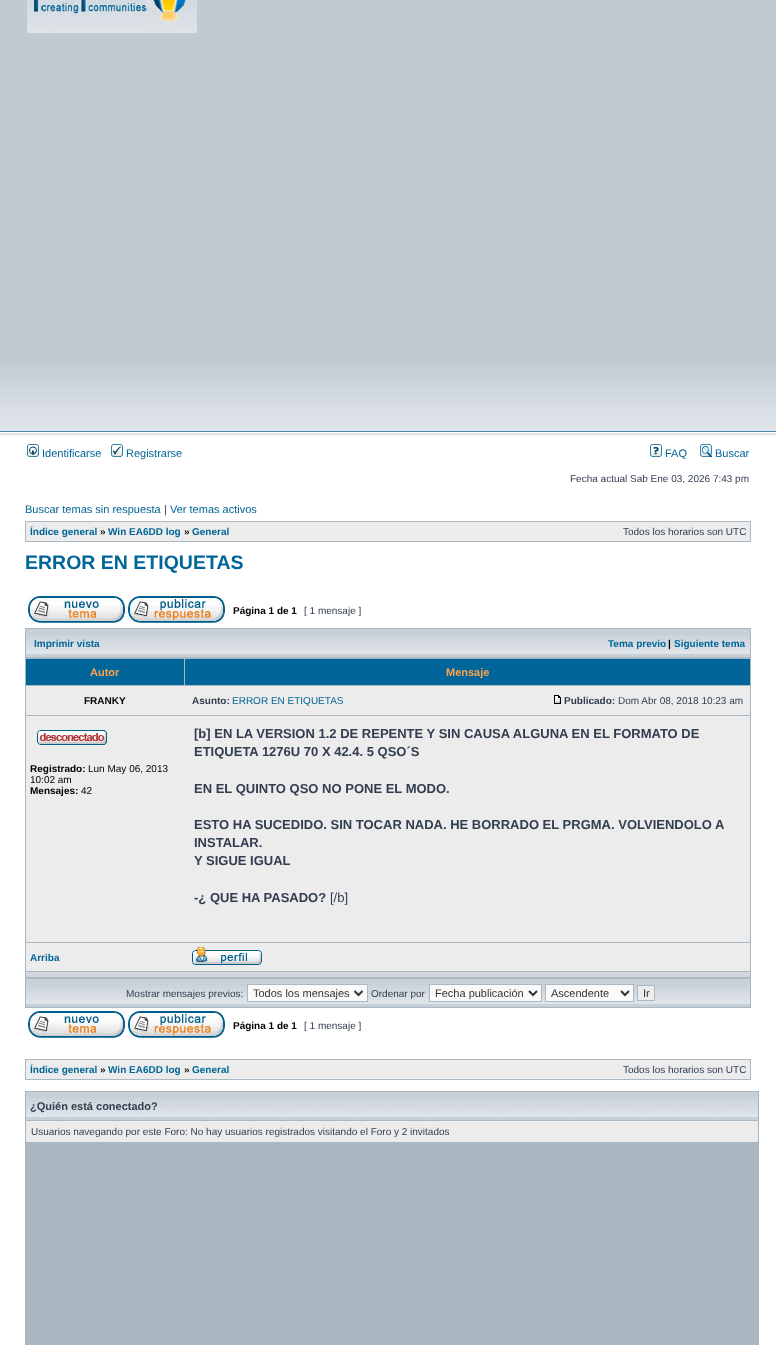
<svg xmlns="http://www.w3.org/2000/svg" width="776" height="1345">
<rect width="100%" height="100%" fill="#fff"/>
<rect width="776" height="364" fill="#c1cad2"/>
<image x="0" y="364" width="776" height="78" href="media/1.png"/>
<image x="27" y="0" width="170" height="33" href="media/2.png"/>
<image x="27" y="444" width="12" height="13" href="media/3.png"/>
<text x="42" y="457" style="font-family:Liberation Sans;font-size:11px;fill:#006597">Identificarse</text>
<image x="111" y="444" width="12" height="13" href="media/4.png"/>
<text x="126" y="457" style="font-family:Liberation Sans;font-size:11px;fill:#006597">Registrarse</text>
<image x="650" y="444" width="12" height="13" href="media/5.png"/>
<text x="665" y="457" style="font-family:Liberation Sans;font-size:11px;fill:#006597">FAQ</text>
<image x="700" y="444" width="12" height="13" href="media/6.png"/>
<text x="715" y="457" style="font-family:Liberation Sans;font-size:11px;fill:#006597">Buscar</text>
<text x="570" y="482" style="font-family:Liberation Sans;font-size:10px;fill:#323d4f">Fecha actual Sab Ene 03, 2026 7:43 pm</text>
<text x="25" y="513" style="font-family:Liberation Sans;font-size:11px;fill:#006597">Buscar temas sin respuesta</text>
<text x="164" y="513" style="font-family:Liberation Sans;font-size:11px;fill:#323d4f">|</text>
<text x="170" y="513" style="font-family:Liberation Sans;font-size:11px;fill:#006597">Ver temas activos</text>
<rect x="25" y="521" width="726" height="21" fill="#a9b8c2"/>
<rect x="26" y="522" width="724" height="19" fill="#ececec"/>
<text x="30" y="535" style="font-family:Liberation Sans;font-size:10px;font-weight:bold;fill:#006597">Índice general</text>
<text x="100" y="535" style="font-family:Liberation Sans;font-size:10px;font-weight:bold;fill:#000">»</text>
<text x="108" y="535" style="font-family:Liberation Sans;font-size:10px;font-weight:bold;fill:#006597">Win EA6DD log</text>
<text x="184" y="535" style="font-family:Liberation Sans;font-size:10px;font-weight:bold;fill:#000">»</text>
<text x="192" y="535" style="font-family:Liberation Sans;font-size:10px;font-weight:bold;fill:#006597">General</text>
<text x="623" y="535" style="font-family:Liberation Sans;font-size:10px;fill:#323d4f">Todos los horarios son UTC</text>
<text x="25" y="569" style="font-family:Liberation Sans;font-size:19.5px;font-weight:bold;fill:#006597">ERROR EN ETIQUETAS</text>
<image x="28" y="596" width="97" height="27" href="media/7.png"/>
<image x="128" y="596" width="97" height="27" href="media/8.png"/>
<text x="233" y="614" style="font-family:Liberation Sans;font-size:10px;font-weight:bold;fill:#000">Página 1 de 1</text>
<text x="304" y="614" style="font-family:Liberation Sans;font-size:10px;fill:#323d4f">[ 1 mensaje ]</text>
<rect x="25" y="628" width="726" height="380" fill="#a9b8c2"/>
<rect x="26" y="629" width="724" height="28" fill="#c7d0d7"/>
<image x="26" y="635" width="724" height="19" href="media/9.png"/>
<text x="34" y="647" style="font-family:Liberation Sans;font-size:10px;font-weight:bold;fill:#006597">Imprimir vista</text>
<text x="608" y="647" style="font-family:Liberation Sans;font-size:10px;font-weight:bold;fill:#006597">Tema previo</text>
<text x="668" y="647" style="font-family:Liberation Sans;font-size:10px;font-weight:bold;fill:#000">|</text>
<text x="674" y="647" style="font-family:Liberation Sans;font-size:10px;font-weight:bold;fill:#006597">Siguiente tema</text>
<rect x="26" y="659" width="158" height="26" fill="#069"/>
<text x="90" y="676" style="font-family:Liberation Sans;font-size:11px;font-weight:bold;fill:#ffa34f">Autor</text>
<rect x="185" y="659" width="565" height="26" fill="#069"/>
<text x="446" y="676" style="font-family:Liberation Sans;font-size:11px;font-weight:bold;fill:#ffa34f">Mensaje</text>
<rect x="26" y="686" width="724" height="29" fill="#ececec"/>
<text x="84" y="704" style="font-family:Liberation Sans;font-size:10px;font-weight:bold;fill:#000">FRANKY</text>
<text x="192" y="704" style="font-family:Liberation Sans;font-size:10px;font-weight:bold;fill:#323d4f">Asunto:</text>
<text x="232" y="704" style="font-family:Liberation Sans;font-size:10px;fill:#006597">ERROR EN ETIQUETAS</text>
<image x="554" y="695" width="7" height="9" href="media/10.png"/>
<text x="564" y="704" style="font-family:Liberation Sans;font-size:10px;font-weight:bold;fill:#323d4f">Publicado:</text>
<text x="618" y="704" style="font-family:Liberation Sans;font-size:10px;fill:#323d4f">Dom Abr 08, 2018 10:23 am</text>
<rect x="26" y="716" width="724" height="226" fill="#ececec"/>
<image x="37" y="730" width="70" height="15" href="media/11.png"/>
<text x="30" y="772" style="font-family:Liberation Sans;font-size:10px;font-weight:bold;fill:#000">Registrado:</text>
<text x="88" y="772" style="font-family:Liberation Sans;font-size:10px;fill:#000">Lun May 06, 2013</text>
<text x="30" y="783" style="font-family:Liberation Sans;font-size:10px;fill:#000">10:02 am</text>
<text x="30" y="794" style="font-family:Liberation Sans;font-size:10px;font-weight:bold;fill:#000">Mensajes:</text>
<text x="81" y="794" style="font-family:Liberation Sans;font-size:10px;fill:#000">42</text>
<text x="194" y="738" style="font-family:Liberation Sans;font-size:13px;font-weight:bold;fill:#323d4f">[b] EN LA VERSION 1.2 DE REPENTE Y SIN CAUSA ALGUNA EN EL FORMATO DE</text>
<text x="194" y="756" style="font-family:Liberation Sans;font-size:13px;font-weight:bold;fill:#323d4f">ETIQUETA 1276U 70 X 42.4. 5 QSO´S</text>
<text x="194" y="793" style="font-family:Liberation Sans;font-size:13px;font-weight:bold;fill:#323d4f">EN EL QUINTO QSO NO PONE EL MODO.</text>
<text x="194" y="829" style="font-family:Liberation Sans;font-size:13px;font-weight:bold;fill:#323d4f">ESTO HA SUCEDIDO. SIN TOCAR NADA. HE BORRADO EL PRGMA. VOLVIENDOLO A</text>
<text x="194" y="847" style="font-family:Liberation Sans;font-size:13px;font-weight:bold;fill:#323d4f">INSTALAR.</text>
<text x="194" y="865" style="font-family:Liberation Sans;font-size:13px;font-weight:bold;fill:#323d4f">Y SIGUE IGUAL</text>
<text x="194" y="902" style="font-family:Liberation Sans;font-size:13px;font-weight:bold;fill:#323d4f">-¿ QUE HA PASADO?</text>
<text x="330" y="902" style="font-family:Liberation Sans;font-size:13px;fill:#323d4f">[/b]</text>
<rect x="26" y="943" width="724" height="28" fill="#ececec"/>
<text x="30" y="961" style="font-family:Liberation Sans;font-size:10px;font-weight:bold;fill:#006597">Arriba</text>
<image x="192" y="946" width="70" height="19" href="media/12.png"/>
<rect x="26" y="972" width="724" height="5" fill="#d1d7dc"/>
<rect x="26" y="979" width="724" height="28" fill="#c7d0d7"/>
<image x="26" y="985" width="724" height="19" href="media/9.png"/>
<text x="126" y="997" style="font-family:Liberation Sans;font-size:10px;fill:#323d4f">Mostrar mensajes previos:</text>
<rect x="247.5" y="984.5" width="120" height="17" fill="#fafafa" stroke="#a9b8c2"/>
<path d="M354.5 991l4 4l4-4" fill="none" stroke="#333" stroke-width="2"/>
<text x="253" y="997" style="font-family:Liberation Sans;font-size:11px;fill:#333">Todos los mensajes</text>
<text x="371" y="997" style="font-family:Liberation Sans;font-size:10px;fill:#323d4f">Ordenar por</text>
<rect x="429.5" y="984.5" width="112" height="17" fill="#fafafa" stroke="#a9b8c2"/>
<path d="M529 991l4 4l4-4" fill="none" stroke="#333" stroke-width="2"/>
<text x="435" y="997" style="font-family:Liberation Sans;font-size:11px;fill:#333">Fecha publicación</text>
<rect x="545.5" y="984.5" width="88" height="17" fill="#fafafa" stroke="#a9b8c2"/>
<path d="M621 991l4 4l4-4" fill="none" stroke="#333" stroke-width="2"/>
<text x="551" y="997" style="font-family:Liberation Sans;font-size:11px;fill:#333">Ascendente</text>
<rect x="637.5" y="985.5" width="17" height="15" fill="#ececec" stroke="#a9b8c2"/>
<text x="643" y="997" style="font-family:Liberation Sans;font-size:11px;fill:#333">Ir</text>
<image x="28" y="1011" width="97" height="27" href="media/7.png"/>
<image x="128" y="1011" width="97" height="27" href="media/8.png"/>
<text x="233" y="1029" style="font-family:Liberation Sans;font-size:10px;font-weight:bold;fill:#000">Página 1 de 1</text>
<text x="304" y="1029" style="font-family:Liberation Sans;font-size:10px;fill:#323d4f">[ 1 mensaje ]</text>
<rect x="25" y="1059" width="726" height="21" fill="#a9b8c2"/>
<rect x="26" y="1060" width="724" height="19" fill="#ececec"/>
<text x="30" y="1073" style="font-family:Liberation Sans;font-size:10px;font-weight:bold;fill:#006597">Índice general</text>
<text x="100" y="1073" style="font-family:Liberation Sans;font-size:10px;font-weight:bold;fill:#000">»</text>
<text x="108" y="1073" style="font-family:Liberation Sans;font-size:10px;font-weight:bold;fill:#006597">Win EA6DD log</text>
<text x="184" y="1073" style="font-family:Liberation Sans;font-size:10px;font-weight:bold;fill:#000">»</text>
<text x="192" y="1073" style="font-family:Liberation Sans;font-size:10px;font-weight:bold;fill:#006597">General</text>
<text x="623" y="1073" style="font-family:Liberation Sans;font-size:10px;fill:#323d4f">Todos los horarios son UTC</text>
<rect x="25" y="1091" width="734" height="254" fill="#a9b8c2"/>
<rect x="26" y="1092" width="732" height="28" fill="#c7d0d7"/>
<image x="26" y="1098" width="732" height="19" href="media/13.png"/>
<text x="30" y="1110" style="font-family:Liberation Sans;font-size:11px;font-weight:bold;fill:#323d4f">¿Quién está conectado?</text>
<rect x="26" y="1121" width="732" height="21" fill="#ececec"/>
<text x="31" y="1135" style="font-family:Liberation Sans;font-size:10px;fill:#323d4f">Usuarios navegando por este Foro: No hay usuarios registrados visitando el Foro y 2 invitados</text>
</svg>
